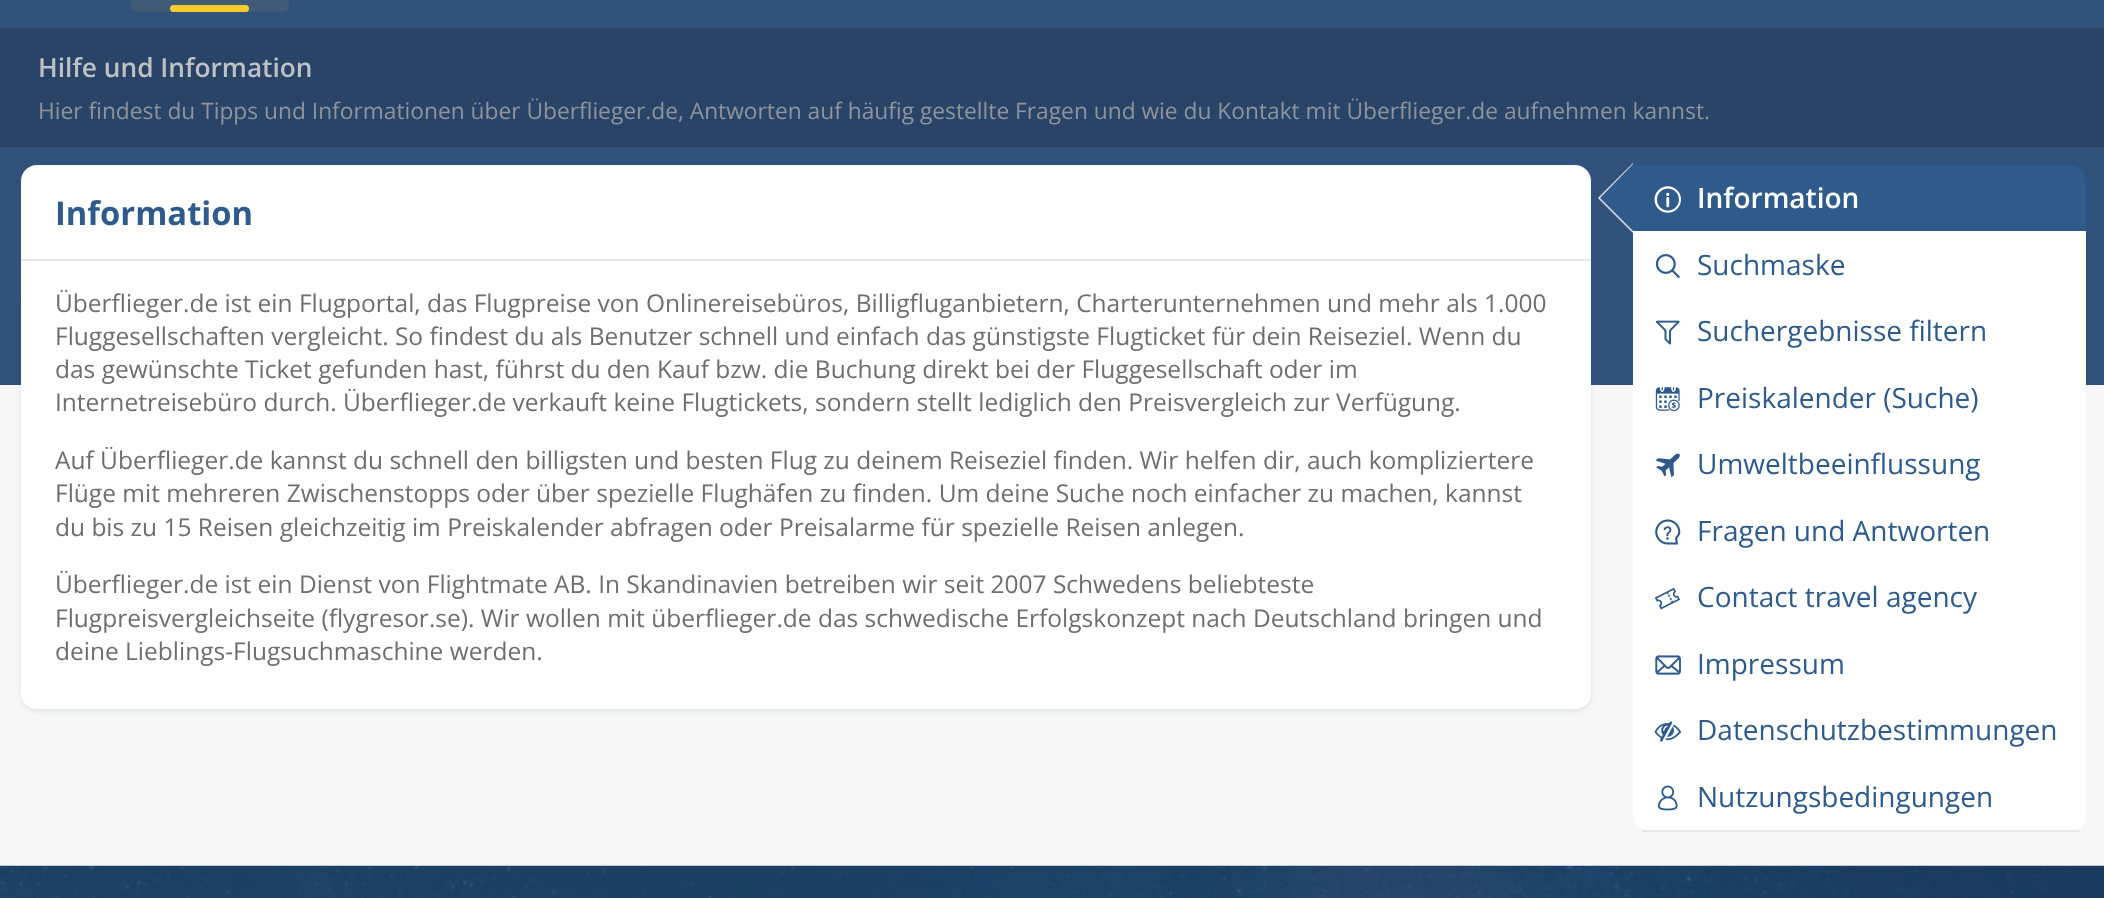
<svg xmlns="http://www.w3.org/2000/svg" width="2104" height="898">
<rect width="100%" height="100%" fill="#f7f7f7"/>
<rect width="2104" height="385" fill="#31527a"/>
<rect x="131" y="-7" width="158" height="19" rx="7" fill="#3f5b75"/>
<rect x="170" y="5" width="79" height="7" rx="3.5" fill="#fbcc2c"/>
<rect y="28" width="2104" height="119" fill="#294466"/>
<text x="38" y="77" style="font-family:Open Sans;font-size:26.25px;font-weight:600;fill:#bec2c7">Hilfe und Information</text>
<text x="38" y="119" style="font-family:Open Sans;font-size:22.75px;fill:#8d949e">Hier findest du Tipps und Informationen über Überflieger.de, Antworten auf häufig gestellte Fragen und wie du Kontakt mit Überflieger.de aufnehmen kannst.</text>
<rect x="21" y="165" width="1570" height="544" rx="16" fill="#fff"/>
<rect x="21" y="259" width="1570" height="2" fill="#e6e8ed"/>
<text x="55" y="225" style="font-family:Open Sans;font-size:32.75px;font-weight:bold;fill:#2e5b8b">Information</text>
<rect x="21" y="289" width="1570" height="423" rx="16" fill="#31527a1a" filter="blur(2.5px)"/>
<path d="M21 285h1570v408c0 9-7 16-16 16h-1538c-9 0-16-7-16-16z" fill="#fff"/>
<text x="55" y="312" style="font-family:Open Sans;font-size:24.5px;fill:#6e6e6e">Überflieger.de ist ein Flugportal, das Flugpreise von Onlinereisebüros, Billigfluganbietern, Charterunternehmen und mehr als 1.000</text>
<text x="55" y="345" style="font-family:Open Sans;font-size:24.5px;fill:#6e6e6e">Fluggesellschaften vergleicht. So findest du als Benutzer schnell und einfach das günstigste Flugticket für dein Reiseziel. Wenn du</text>
<text x="55" y="378" style="font-family:Open Sans;font-size:24.5px;fill:#6e6e6e">das gewünschte Ticket gefunden hast, führst du den Kauf bzw. die Buchung direkt bei der Fluggesellschaft oder im</text>
<text x="55" y="411" style="font-family:Open Sans;font-size:24.5px;fill:#6e6e6e">Internetreisebüro durch. Überflieger.de verkauft keine Flugtickets, sondern stellt lediglich den Preisvergleich zur Verfügung.</text>
<text x="55" y="469" style="font-family:Open Sans;font-size:24.5px;fill:#6e6e6e">Auf Überflieger.de kannst du schnell den billigsten und besten Flug zu deinem Reiseziel finden. Wir helfen dir, auch kompliziertere</text>
<text x="55" y="502" style="font-family:Open Sans;font-size:24.5px;fill:#6e6e6e">Flüge mit mehreren Zwischenstopps oder über spezielle Flughäfen zu finden. Um deine Suche noch einfacher zu machen, kannst</text>
<text x="55" y="536" style="font-family:Open Sans;font-size:24.5px;fill:#6e6e6e">du bis zu 15 Reisen gleichzeitig im Preiskalender abfragen oder Preisalarme für spezielle Reisen anlegen.</text>
<text x="55" y="593" style="font-family:Open Sans;font-size:24.5px;fill:#6e6e6e">Überflieger.de ist ein Dienst von Flightmate AB. In Skandinavien betreiben wir seit 2007 Schwedens beliebteste</text>
<text x="55" y="627" style="font-family:Open Sans;font-size:24.5px;fill:#6e6e6e">Flugpreisvergleichseite (flygresor.se). Wir wollen mit überflieger.de das schwedische Erfolgskonzept nach Deutschland bringen und</text>
<text x="55" y="660" style="font-family:Open Sans;font-size:24.5px;fill:#6e6e6e">deine Lieblings-Flugsuchmaschine werden.</text>
<path d="M1633 165h437c9 0 16 7 16 16v50h-453z" fill="#2e5b8b"/>
<path d="M1633 163v70l-35-35z" fill="#e6e8ed"/>
<path d="M1633 164v67l-33-33z" fill="#2e5b8b"/>
<image x="1654" y="186" width="27" height="27" href="media/1.png"/>
<text x="1697" y="208" style="font-family:Open Sans;font-size:28px;font-weight:600;fill:#fff">Information</text>
<rect x="1633" y="231" width="453" height="532" fill="#fff"/>
<image x="1655" y="254" width="25" height="24" href="media/2.png"/>
<text x="1697" y="275" style="font-family:Open Sans;font-size:28px;fill:#2e5b8b">Suchmaske</text>
<image x="1655" y="320" width="25" height="25" href="media/3.png"/>
<text x="1697" y="341" style="font-family:Open Sans;font-size:28px;fill:#2e5b8b">Suchergebnisse filtern</text>
<image x="1655" y="387" width="25" height="25" href="media/4.png"/>
<text x="1697" y="408" style="font-family:Open Sans;font-size:28px;fill:#2e5b8b">Preiskalender (Suche)</text>
<image x="1655" y="453" width="25" height="25" href="media/5.png"/>
<text x="1697" y="474" style="font-family:Open Sans;font-size:28px;fill:#2e5b8b">Umweltbeeinflussung</text>
<image x="1655" y="519" width="26" height="26" href="media/6.png"/>
<text x="1697" y="541" style="font-family:Open Sans;font-size:28px;fill:#2e5b8b">Fragen und Antworten</text>
<image x="1654" y="587" width="27" height="23" href="media/7.png"/>
<text x="1697" y="607" style="font-family:Open Sans;font-size:28px;fill:#2e5b8b">Contact travel agency</text>
<image x="1655" y="655" width="26" height="20" href="media/8.png"/>
<text x="1697" y="674" style="font-family:Open Sans;font-size:28px;fill:#2e5b8b">Impressum</text>
<image x="1654" y="721" width="27" height="21" href="media/9.png"/>
<text x="1697" y="740" style="font-family:Open Sans;font-size:28px;fill:#2e5b8b">Datenschutzbestimmungen</text>
<path d="M1633 763h453v52c0 9-7 16-16 16h-421c-9 0-16-7-16-16z" fill="#fff"/>
<rect x="1642" y="830" width="437" height="2" fill="#e6e8ed"/>
<image x="1658" y="785" width="20" height="26" href="media/10.png"/>
<text x="1697" y="807" style="font-family:Open Sans;font-size:28px;fill:#2e5b8b">Nutzungsbedingungen</text>
<image x="0" y="865" width="2104" height="33" href="media/11.png"/>
</svg>
